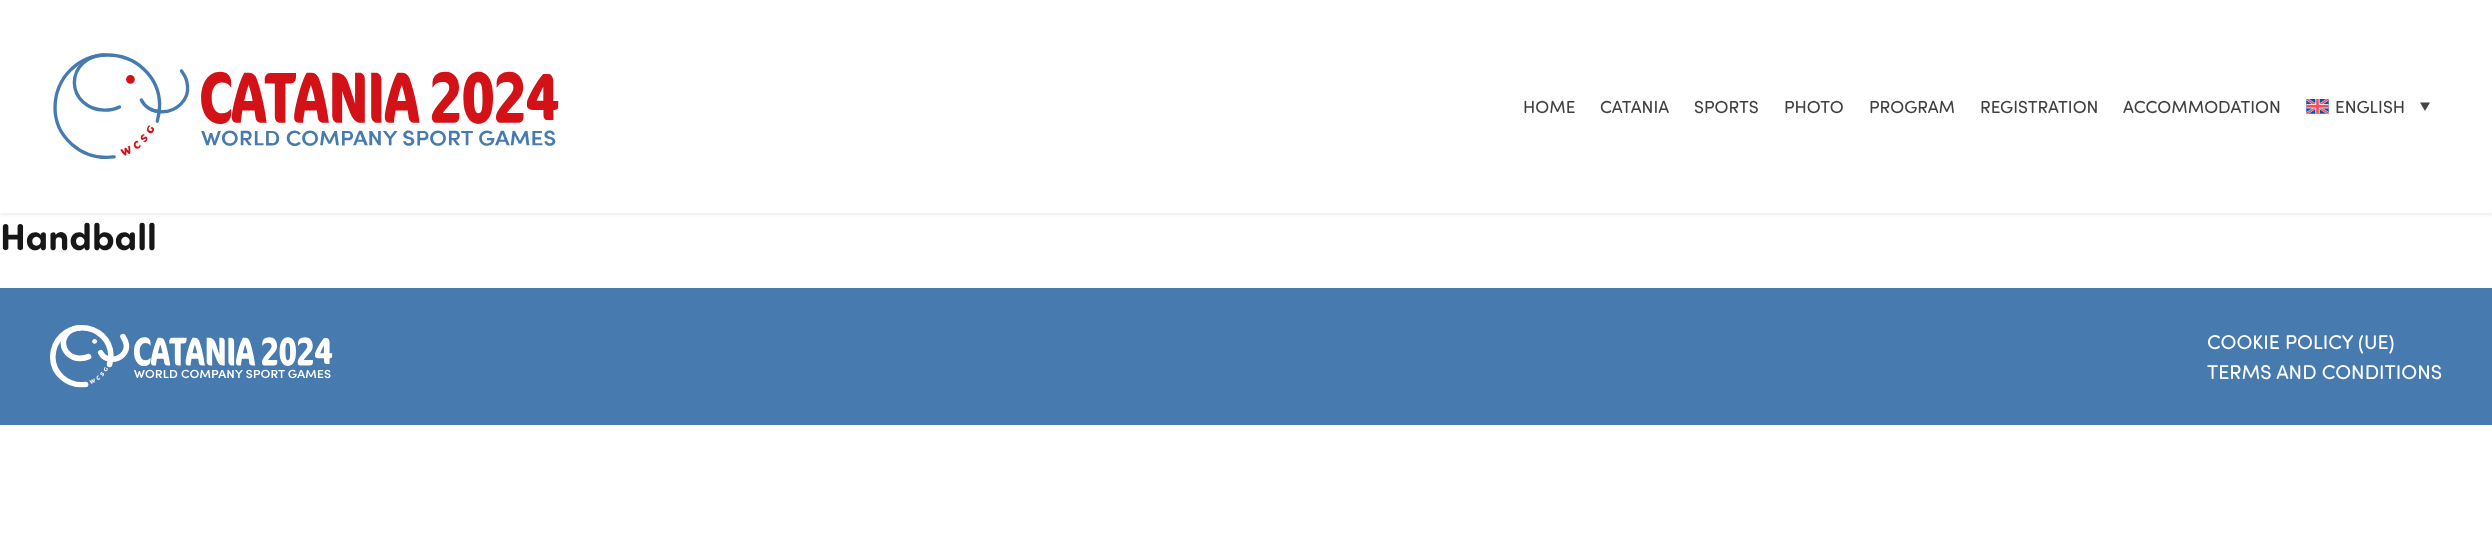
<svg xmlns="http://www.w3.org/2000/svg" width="2492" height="553">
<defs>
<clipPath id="clip1"><path d="M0 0h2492v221h-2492zm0 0h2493v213h-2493z" clip-rule="evenodd"/></clipPath>
</defs>
<rect width="100%" height="100%" fill="#fff"/>
<g clip-path="url(#clip1)">
<rect y="1" width="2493" height="213" fill="#0000001a" filter="blur(2px)"/>
</g>
<image x="53" y="53" width="506" height="106" href="media/1.png"/>
<text x="1523" y="113" style="font-family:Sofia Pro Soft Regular;font-size:17.5px;fill:#404040">HOME</text>
<text x="1600" y="113" style="font-family:Sofia Pro Soft Regular;font-size:17.5px;fill:#404040">CATANIA</text>
<text x="1694" y="113" style="font-family:Sofia Pro Soft Regular;font-size:17.5px;fill:#404040">SPORTS</text>
<text x="1784" y="113" style="font-family:Sofia Pro Soft Regular;font-size:17.5px;fill:#404040">PHOTO</text>
<text x="1869" y="113" style="font-family:Sofia Pro Soft Regular;font-size:17.5px;fill:#404040">PROGRAM</text>
<text x="1980" y="113" style="font-family:Sofia Pro Soft Regular;font-size:17.5px;fill:#404040">REGISTRATION</text>
<text x="2123" y="113" style="font-family:Sofia Pro Soft Regular;font-size:17.5px;fill:#404040">ACCOMMODATION</text>
<image x="2306" y="99" width="23" height="15" href="media/2.png"/>
<text x="2335" y="113" style="font-family:Sofia Pro Soft Regular;font-size:17.5px;fill:#404040">ENGLISH</text>
<path d="M2420 102.5h10l-5 8.5z" fill="#444"/>
<text x="0" y="250" style="font-family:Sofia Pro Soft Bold;font-size:37.5px;font-weight:bold;fill:#171717">Handball</text>
<rect y="288" width="2492" height="137" fill="#477aaf"/>
<image x="50" y="325" width="283" height="63" href="media/3.png"/>
<text x="2207" y="349" style="font-family:Sofia Pro Soft Regular;font-size:20px;fill:#fff">COOKIE POLICY (UE)</text>
<text x="2207" y="379" style="font-family:Sofia Pro Soft Regular;font-size:20px;fill:#fff">TERMS AND CONDITIONS</text>
</svg>
